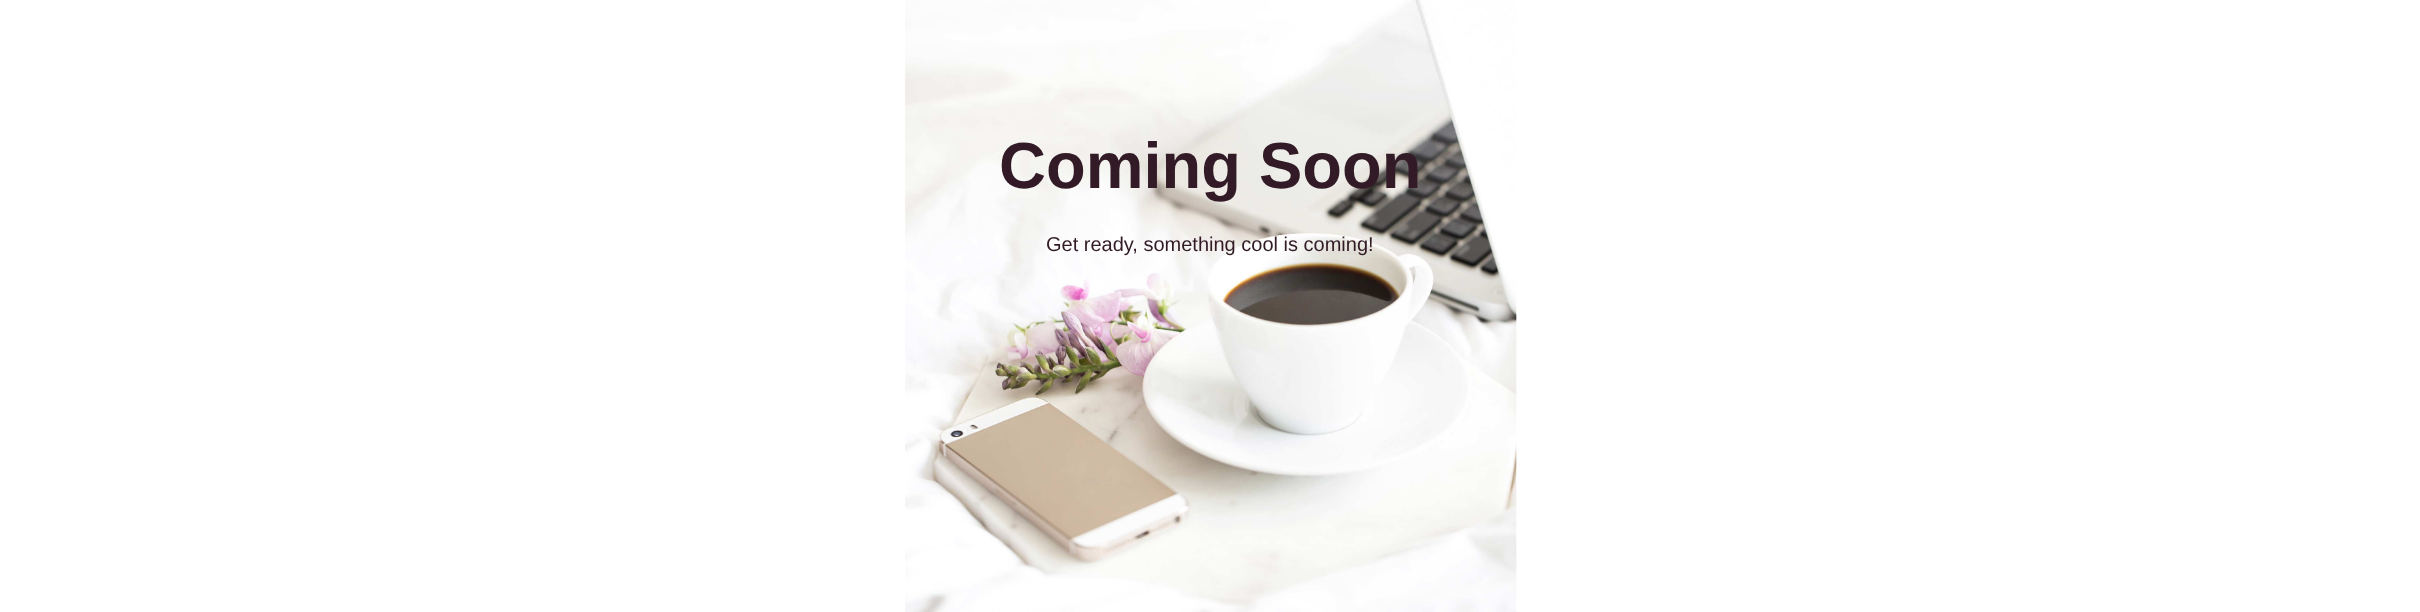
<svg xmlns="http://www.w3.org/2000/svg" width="2420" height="612">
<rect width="100%" height="100%" fill="#fff"/>
<image x="905" y="0" width="612" height="612" href="media/1.png"/>
<text x="999" y="188" style="font-family:Liberation Sans;font-size:65px;font-weight:bold;fill:#321b26">Coming Soon</text>
<text x="1046" y="251" style="font-family:Liberation Sans;font-size:20px;fill:#321b26">Get ready, something cool is coming!</text>
</svg>
